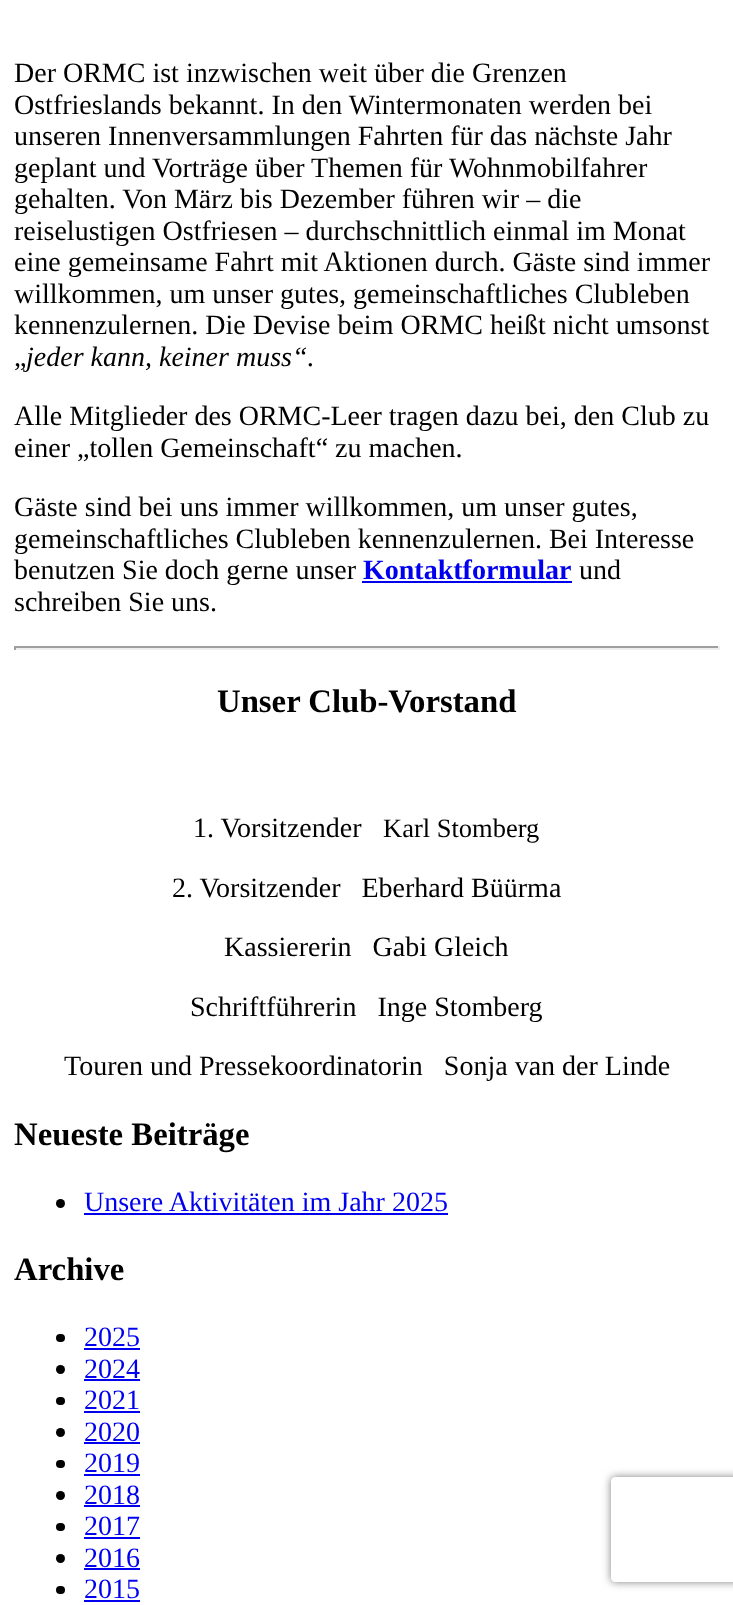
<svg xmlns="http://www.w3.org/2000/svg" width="733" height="1605">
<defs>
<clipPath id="clip1"><path d="M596 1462h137v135h-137zm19 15h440c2 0 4 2 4 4v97c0 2-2 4-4 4h-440c-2 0-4-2-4-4v-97c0-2 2-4 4-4z" clip-rule="evenodd"/></clipPath>
</defs>
<rect width="100%" height="100%" fill="#fff"/>
<text x="14" y="82" style="font-family:Liberation Serif;font-size:28px;fill:#000">Der ORMC ist inzwischen weit über die Grenzen</text>
<text x="14" y="114" style="font-family:Liberation Serif;font-size:28px;fill:#000">Ostfrieslands bekannt. In den Wintermonaten werden bei</text>
<text x="14" y="145" style="font-family:Liberation Serif;font-size:28px;fill:#000">unseren Innenversammlungen Fahrten für das nächste Jahr</text>
<text x="14" y="177" style="font-family:Liberation Serif;font-size:28px;fill:#000">geplant und Vorträge über Themen für Wohnmobilfahrer</text>
<text x="14" y="208" style="font-family:Liberation Serif;font-size:28px;fill:#000">gehalten. Von März bis Dezember führen wir – die</text>
<text x="14" y="240" style="font-family:Liberation Serif;font-size:28px;fill:#000">reiselustigen Ostfriesen – durchschnittlich einmal im Monat</text>
<text x="14" y="271" style="font-family:Liberation Serif;font-size:28px;fill:#000">eine gemeinsame Fahrt mit Aktionen durch. Gäste sind immer</text>
<text x="14" y="303" style="font-family:Liberation Serif;font-size:28px;fill:#000">willkommen, um unser gutes, gemeinschaftliches Clubleben</text>
<text x="14" y="334" style="font-family:Liberation Serif;font-size:28px;fill:#000">kennenzulernen. Die Devise beim ORMC heißt nicht umsonst</text>
<text x="14" y="366" style="font-family:Liberation Serif;font-size:28px;fill:#000">„</text>
<text x="26" y="366" style="font-family:Liberation Serif;font-size:28px;font-style:italic;fill:#000">jeder kann, keiner muss“.</text>
<text x="14" y="425" style="font-family:Liberation Serif;font-size:28px;fill:#000">Alle Mitglieder des ORMC-Leer tragen dazu bei, den Club zu</text>
<text x="14" y="457" style="font-family:Liberation Serif;font-size:28px;fill:#000">einer „tollen Gemeinschaft“ zu machen.</text>
<text x="14" y="516" style="font-family:Liberation Serif;font-size:28px;fill:#000">Gäste sind bei uns immer willkommen, um unser gutes,</text>
<text x="14" y="548" style="font-family:Liberation Serif;font-size:28px;fill:#000">gemeinschaftliches Clubleben kennenzulernen. Bei Interesse</text>
<text x="14" y="579" style="font-family:Liberation Serif;font-size:28px;fill:#000">benutzen Sie doch gerne unser</text>
<text x="363" y="579" style="font-family:Liberation Serif;font-size:28px;font-weight:bold;fill:#00e">Kontaktformular</text>
<rect x="362" y="581" width="210" height="2" fill="#00e"/>
<text x="579" y="579" style="font-family:Liberation Serif;font-size:28px;fill:#000">und</text>
<text x="14" y="611" style="font-family:Liberation Serif;font-size:28px;fill:#000">schreiben Sie uns.</text>
<rect x="14" y="646" width="705" height="2" fill="#9f9f9f"/>
<rect x="718" y="646" width="2" height="4" fill="#eee"/>
<rect x="14" y="648" width="705" height="2" fill="#eee"/>
<rect x="14" y="646" width="2" height="4" fill="#9f9f9f"/>
<text x="217" y="712" style="font-family:Liberation Serif;font-size:32.75px;font-weight:bold;fill:#000">Unser Club-Vorstand</text>
<text x="193" y="837" style="font-family:Liberation Serif;font-size:28px;fill:#000">1. Vorsitzender</text>
<text x="383" y="837" style="font-family:Liberation Serif;font-size:26.5px;fill:#000">Karl Stomberg</text>
<text x="172" y="897" style="font-family:Liberation Serif;font-size:28px;fill:#000" xml:space="preserve">2. Vorsitzender   Eberhard Büürma</text>
<text x="224" y="956" style="font-family:Liberation Serif;font-size:28px;fill:#000" xml:space="preserve">Kassiererin   Gabi Gleich</text>
<text x="190" y="1016" style="font-family:Liberation Serif;font-size:28px;fill:#000" xml:space="preserve">Schriftführerin   Inge Stomberg</text>
<text x="64" y="1075" style="font-family:Liberation Serif;font-size:28px;fill:#000" xml:space="preserve">Touren und Pressekoordinatorin   Sonja van der Linde</text>
<text x="14" y="1145" style="font-family:Liberation Serif;font-size:32.75px;font-weight:bold;fill:#000">Neueste Beiträge</text>
<circle cx="60.5" cy="1203.5" r="4.5" fill="#000"/>
<text x="84" y="1211" style="font-family:Liberation Serif;font-size:28px;fill:#00e">Unsere Aktivitäten im Jahr 2025</text>
<rect x="84" y="1213" width="364" height="2" fill="#00e"/>
<text x="14" y="1280" style="font-family:Liberation Serif;font-size:32.75px;font-weight:bold;fill:#000">Archive</text>
<rect x="56" y="1334" width="9" height="8" rx="4" fill="#000"/>
<text x="84" y="1346" style="font-family:Liberation Serif;font-size:28px;fill:#00e">2025</text>
<rect x="84" y="1348" width="56" height="2" fill="#00e"/>
<circle cx="60.5" cy="1369.5" r="4.5" fill="#000"/>
<text x="84" y="1378" style="font-family:Liberation Serif;font-size:28px;fill:#00e">2024</text>
<rect x="84" y="1379" width="56" height="2" fill="#00e"/>
<rect x="56" y="1397" width="9" height="8" rx="4" fill="#000"/>
<text x="84" y="1409" style="font-family:Liberation Serif;font-size:28px;fill:#00e">2021</text>
<rect x="84" y="1411" width="56" height="2" fill="#00e"/>
<circle cx="60.5" cy="1432.5" r="4.5" fill="#000"/>
<text x="84" y="1441" style="font-family:Liberation Serif;font-size:28px;fill:#00e">2020</text>
<rect x="84" y="1442" width="56" height="2" fill="#00e"/>
<rect x="56" y="1460" width="9" height="8" rx="4" fill="#000"/>
<text x="84" y="1472" style="font-family:Liberation Serif;font-size:28px;fill:#00e">2019</text>
<rect x="84" y="1474" width="56" height="2" fill="#00e"/>
<circle cx="60.5" cy="1495.5" r="4.5" fill="#000"/>
<text x="84" y="1504" style="font-family:Liberation Serif;font-size:28px;fill:#00e">2018</text>
<rect x="84" y="1505" width="56" height="2" fill="#00e"/>
<rect x="56" y="1523" width="9" height="8" rx="4" fill="#000"/>
<text x="84" y="1535" style="font-family:Liberation Serif;font-size:28px;fill:#00e">2017</text>
<rect x="84" y="1537" width="56" height="2" fill="#00e"/>
<circle cx="60.5" cy="1558.5" r="4.5" fill="#000"/>
<text x="84" y="1567" style="font-family:Liberation Serif;font-size:28px;fill:#00e">2016</text>
<rect x="84" y="1568" width="56" height="2" fill="#00e"/>
<rect x="56" y="1586" width="9" height="8" rx="4" fill="#000"/>
<text x="84" y="1598" style="font-family:Liberation Serif;font-size:28px;fill:#00e">2015</text>
<rect x="84" y="1600" width="56" height="2" fill="#00e"/>
<g clip-path="url(#clip1)">
<rect x="611" y="1477" width="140" height="105" rx="4" fill="#808080" filter="blur(4.5px)"/>
</g>
</svg>
